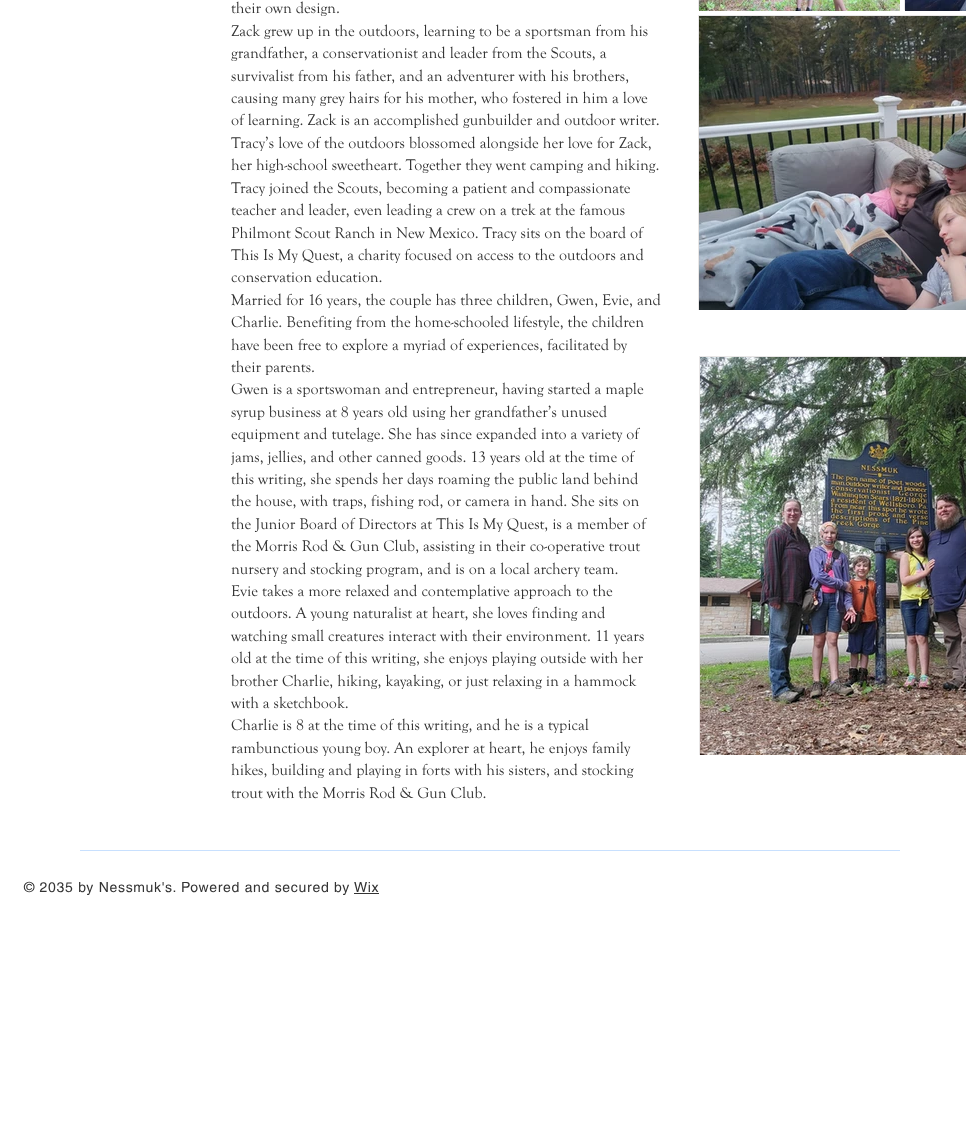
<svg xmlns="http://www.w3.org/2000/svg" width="966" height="1125">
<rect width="100%" height="100%" fill="#fff"/>
<text x="231" y="13" style="font-family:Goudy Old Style;font-size:16px;fill:#333">their own design.</text>
<text x="231" y="36" style="font-family:Goudy Old Style;font-size:16px;fill:#333">Zack grew up in the outdoors, learning to be a sportsman from his</text>
<text x="231" y="58" style="font-family:Goudy Old Style;font-size:16px;fill:#333">grandfather, a conservationist and leader from the Scouts, a</text>
<text x="231" y="81" style="font-family:Goudy Old Style;font-size:16px;fill:#333">survivalist from his father, and an adventurer with his brothers,</text>
<text x="231" y="103" style="font-family:Goudy Old Style;font-size:16px;fill:#333">causing many grey hairs for his mother, who fostered in him a love</text>
<text x="231" y="125" style="font-family:Goudy Old Style;font-size:16px;fill:#333">of learning. Zack is an accomplished gunbuilder and outdoor writer.</text>
<text x="231" y="148" style="font-family:Goudy Old Style;font-size:16px;fill:#333">Tracy’s love of the outdoors blossomed alongside her love for Zack,</text>
<text x="231" y="170" style="font-family:Goudy Old Style;font-size:16px;fill:#333">her high-school sweetheart. Together they went camping and hiking.</text>
<text x="231" y="193" style="font-family:Goudy Old Style;font-size:16px;fill:#333">Tracy joined the Scouts, becoming a patient and compassionate</text>
<text x="231" y="215" style="font-family:Goudy Old Style;font-size:16px;fill:#333">teacher and leader, even leading a crew on a trek at the famous</text>
<text x="231" y="238" style="font-family:Goudy Old Style;font-size:16px;fill:#333">Philmont Scout Ranch in New Mexico. Tracy sits on the board of</text>
<text x="231" y="260" style="font-family:Goudy Old Style;font-size:16px;fill:#333">This Is My Quest, a charity focused on access to the outdoors and</text>
<text x="231" y="282" style="font-family:Goudy Old Style;font-size:16px;fill:#333">conservation education.</text>
<text x="231" y="305" style="font-family:Goudy Old Style;font-size:16px;fill:#333">Married for 16 years, the couple has three children, Gwen, Evie, and</text>
<text x="231" y="327" style="font-family:Goudy Old Style;font-size:16px;fill:#333">Charlie. Benefiting from the home-schooled lifestyle, the children</text>
<text x="231" y="350" style="font-family:Goudy Old Style;font-size:16px;fill:#333">have been free to explore a myriad of experiences, facilitated by</text>
<text x="231" y="372" style="font-family:Goudy Old Style;font-size:16px;fill:#333">their parents.</text>
<text x="231" y="394" style="font-family:Goudy Old Style;font-size:16px;fill:#333">Gwen is a sportswoman and entrepreneur, having started a maple</text>
<text x="231" y="417" style="font-family:Goudy Old Style;font-size:16px;fill:#333">syrup business at 8 years old using her grandfather’s unused</text>
<text x="231" y="439" style="font-family:Goudy Old Style;font-size:16px;fill:#333">equipment and tutelage. She has since expanded into a variety of</text>
<text x="231" y="462" style="font-family:Goudy Old Style;font-size:16px;fill:#333">jams, jellies, and other canned goods. 13 years old at the time of</text>
<text x="231" y="484" style="font-family:Goudy Old Style;font-size:16px;fill:#333">this writing, she spends her days roaming the public land behind</text>
<text x="231" y="506" style="font-family:Goudy Old Style;font-size:16px;fill:#333">the house, with traps, fishing rod, or camera in hand. She sits on</text>
<text x="231" y="529" style="font-family:Goudy Old Style;font-size:16px;fill:#333">the Junior Board of Directors at This Is My Quest, is a member of</text>
<text x="231" y="551" style="font-family:Goudy Old Style;font-size:16px;fill:#333">the Morris Rod &amp; Gun Club, assisting in their co-operative trout</text>
<text x="231" y="574" style="font-family:Goudy Old Style;font-size:16px;fill:#333">nursery and stocking program, and is on a local archery team.</text>
<text x="231" y="596" style="font-family:Goudy Old Style;font-size:16px;fill:#333">Evie takes a more relaxed and contemplative approach to the</text>
<text x="231" y="618" style="font-family:Goudy Old Style;font-size:16px;fill:#333">outdoors. A young naturalist at heart, she loves finding and</text>
<text x="231" y="641" style="font-family:Goudy Old Style;font-size:16px;fill:#333">watching small creatures interact with their environment. 11 years</text>
<text x="231" y="663" style="font-family:Goudy Old Style;font-size:16px;fill:#333">old at the time of this writing, she enjoys playing outside with her</text>
<text x="231" y="686" style="font-family:Goudy Old Style;font-size:16px;fill:#333">brother Charlie, hiking, kayaking, or just relaxing in a hammock</text>
<text x="231" y="708" style="font-family:Goudy Old Style;font-size:16px;fill:#333">with a sketchbook.</text>
<text x="231" y="730" style="font-family:Goudy Old Style;font-size:16px;fill:#333">Charlie is 8 at the time of this writing, and he is a typical</text>
<text x="231" y="753" style="font-family:Goudy Old Style;font-size:16px;fill:#333">rambunctious young boy. An explorer at heart, he enjoys family</text>
<text x="231" y="775" style="font-family:Goudy Old Style;font-size:16px;fill:#333">hikes, building and playing in forts with his sisters, and stocking</text>
<text x="231" y="798" style="font-family:Goudy Old Style;font-size:16px;fill:#333">trout with the Morris Rod &amp; Gun Club.</text>
<rect x="698" width="1" height="10" fill="#e8e6e6"/>
<image x="699" y="0" width="201" height="11" href="media/1.png"/>
<rect x="904" width="1" height="10" fill="#e8e6e6"/>
<image x="905" y="0" width="61" height="11" href="media/2.png"/>
<rect x="698" y="15" width="268" height="295" fill="#e8e6e6"/>
<image x="699" y="16" width="267" height="294" href="media/3.png"/>
<rect x="699" y="356" width="267" height="399" fill="#e8e6e6"/>
<image x="700" y="357" width="266" height="398" href="media/4.png"/>
<rect x="80" y="850" width="820" height="1" fill="#c8e0fe"/>
<text x="24" y="892" style="font-family:helvetica;font-size:14px;letter-spacing:0.7px;fill:#333">© 2035 by Nessmuk's. Powered and secured by Wix</text>
<rect x="354" y="893" width="25" height="1" fill="#333"/>
</svg>
